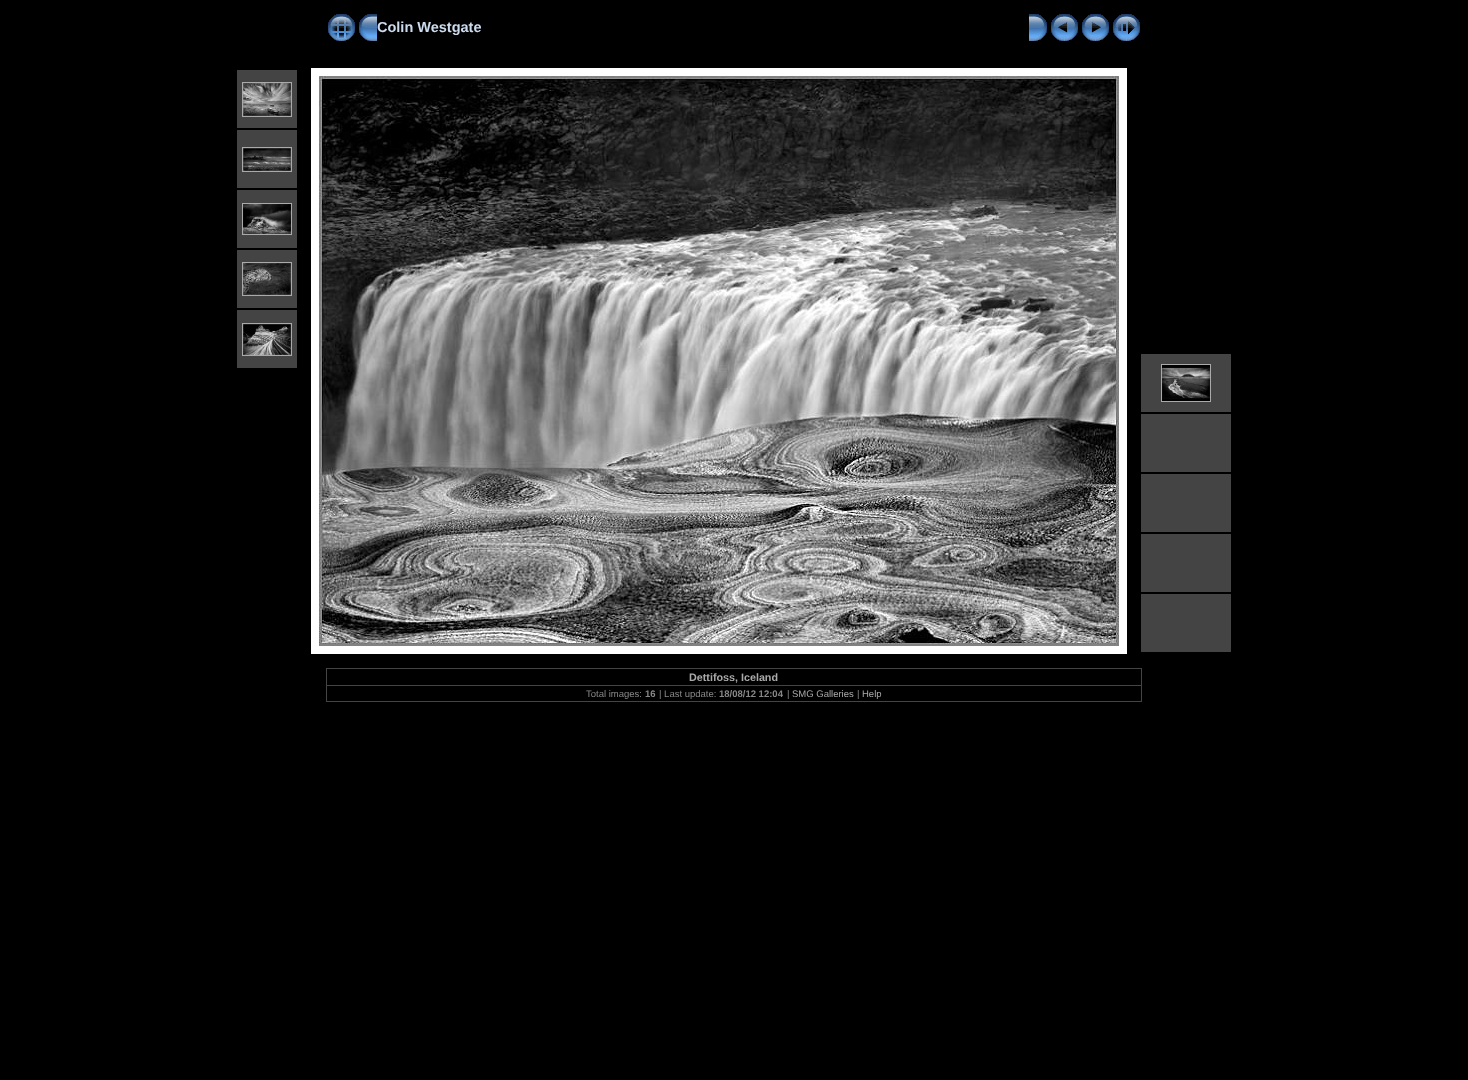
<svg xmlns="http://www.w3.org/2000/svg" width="1468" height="1080">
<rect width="100%" height="100%" fill="#000"/>
<image x="328" y="14" width="27" height="27" href="media/1.png"/>
<image x="359" y="14" width="18" height="27" href="media/2.png"/>
<text x="377" y="32" style="font-family:Liberation Sans;font-size:14.5px;font-weight:bold;fill:#ccdcee">Colin Westgate</text>
<image x="1029" y="14" width="18" height="27" href="media/3.png"/>
<image x="1051" y="14" width="27" height="27" href="media/4.png"/>
<image x="1082" y="14" width="27" height="27" href="media/5.png"/>
<image x="1113" y="14" width="27" height="27" href="media/6.png"/>
<rect x="237" y="70" width="60" height="58" fill="#444"/>
<rect x="242.5" y="82.5" width="49" height="34" fill="none" stroke="#aaa"/>
<image x="243" y="83" width="48" height="33" href="media/7.png"/>
<rect x="237" y="130" width="60" height="58" fill="#444"/>
<rect x="242.5" y="147.5" width="49" height="24" fill="none" stroke="#aaa"/>
<image x="243" y="148" width="48" height="23" href="media/8.png"/>
<rect x="237" y="190" width="60" height="58" fill="#444"/>
<rect x="242.5" y="203.5" width="49" height="31" fill="none" stroke="#aaa"/>
<image x="243" y="204" width="48" height="30" href="media/9.png"/>
<rect x="237" y="250" width="60" height="58" fill="#444"/>
<rect x="242.5" y="262.5" width="49" height="33" fill="none" stroke="#aaa"/>
<image x="243" y="263" width="48" height="32" href="media/10.png"/>
<rect x="237" y="310" width="60" height="58" fill="#444"/>
<rect x="242.5" y="323.5" width="49" height="32" fill="none" stroke="#aaa"/>
<image x="243" y="324" width="48" height="31" href="media/11.png"/>
<rect x="315" y="72" width="808" height="578" fill="none" stroke="#fff" stroke-width="8"/>
<image x="319" y="76" width="800" height="570" href="media/12.png"/>
<rect x="1141" y="354" width="90" height="58" fill="#444"/>
<rect x="1161.5" y="364.5" width="49" height="37" fill="none" stroke="#aaa"/>
<image x="1162" y="365" width="48" height="36" href="media/13.png"/>
<rect x="1141" y="414" width="90" height="58" fill="#444"/>
<rect x="1141" y="474" width="90" height="58" fill="#444"/>
<rect x="1141" y="534" width="90" height="58" fill="#444"/>
<rect x="1141" y="594" width="90" height="58" fill="#444"/>
<rect x="326" y="668" width="816" height="1" fill="#444"/>
<rect x="1141" y="668" width="1" height="34" fill="#444"/>
<rect x="326" y="701" width="816" height="1" fill="#444"/>
<rect x="326" y="668" width="1" height="34" fill="#444"/>
<text x="689" y="681" style="font-family:Liberation Sans;font-size:10.75px;font-weight:bold;fill:#aaa">Dettifoss, Iceland</text>
<rect x="326" y="685" width="816" height="1" fill="#444"/>
<text x="586" y="697" style="font-family:Liberation Sans;font-size:9.5px;fill:#888">Total images:</text>
<text x="645" y="697" style="font-family:Liberation Sans;font-size:9.5px;font-weight:bold;fill:#888">16</text>
<text x="659" y="697" style="font-family:Liberation Sans;font-size:9.5px;fill:#888">| Last update:</text>
<text x="719" y="697" style="font-family:Liberation Sans;font-size:9.5px;font-weight:bold;fill:#888">18/08/12 12:04</text>
<text x="787" y="697" style="font-family:Liberation Sans;font-size:9.5px;fill:#888">|</text>
<text x="792" y="697" style="font-family:Liberation Sans;font-size:9.5px;fill:#aaa">SMG Galleries</text>
<text x="857" y="697" style="font-family:Liberation Sans;font-size:9.5px;fill:#888">|</text>
<text x="862" y="697" style="font-family:Liberation Sans;font-size:9.5px;fill:#aaa">Help</text>
</svg>
